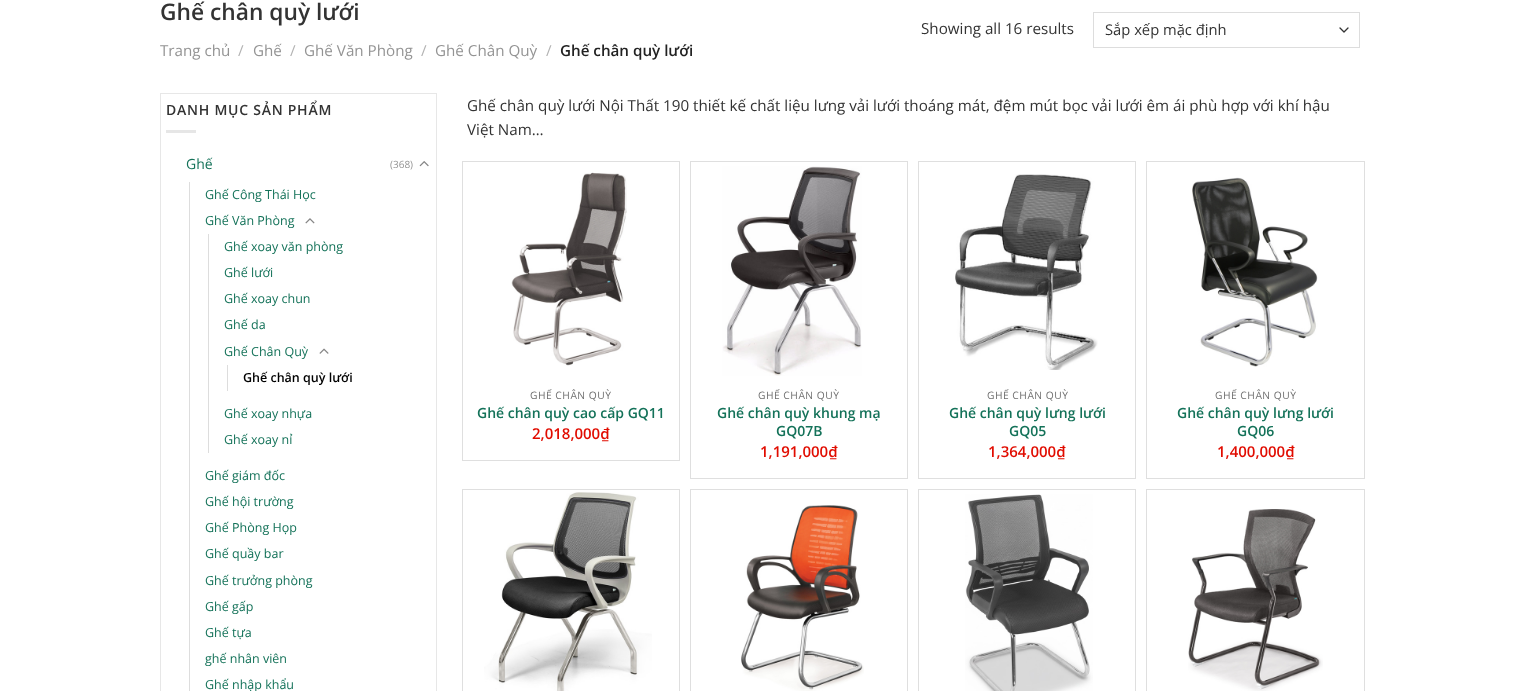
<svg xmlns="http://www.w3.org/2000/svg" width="1519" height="691">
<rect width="100%" height="100%" fill="#fff"/>
<text x="160" y="20" style="font-family:Open Sans;font-size:22.75px;font-weight:600;fill:#333">Ghế chân quỳ lưới</text>
<text x="160" y="56" style="font-family:Open Sans;font-size:15.2px;fill:#949494">Trang chủ</text>
<text x="238" y="56" style="font-family:Open Sans;font-size:15.2px;fill:#b2b2b2">/</text>
<text x="253" y="56" style="font-family:Open Sans;font-size:15.2px;fill:#949494">Ghế</text>
<text x="290" y="56" style="font-family:Open Sans;font-size:15.2px;fill:#b2b2b2">/</text>
<text x="304" y="56" style="font-family:Open Sans;font-size:15.2px;fill:#949494">Ghế Văn Phòng</text>
<text x="421" y="56" style="font-family:Open Sans;font-size:15.2px;fill:#b2b2b2">/</text>
<text x="435" y="56" style="font-family:Open Sans;font-size:15.2px;fill:#949494">Ghế Chân Quỳ</text>
<text x="546" y="56" style="font-family:Open Sans;font-size:15.2px;fill:#b2b2b2">/</text>
<text x="560" y="56" style="font-family:Open Sans;font-size:15.2px;font-weight:600;fill:#222">Ghế chân quỳ lưới</text>
<text x="921" y="34" style="font-family:Open Sans;font-size:15.2px;fill:#333">Showing all 16 results</text>
<path d="M1340 28l4 4l4-4" fill="none" stroke="#333" stroke-width="1.3" stroke-linecap="round" stroke-linejoin="round"/>
<rect x="1093.5" y="12.5" width="266" height="35" fill="none" stroke="#ddd"/>
<text x="1105" y="35" style="font-family:Open Sans;font-size:14.75px;fill:#333">Sắp xếp mặc định</text>
<rect x="160.5" y="93.5" width="276" height="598" fill="none" stroke="#e7e7e7"/>
<text x="166" y="115" style="font-family:Open Sans;font-size:14px;font-weight:600;letter-spacing:0.75px;fill:#333">DANH MỤC SẢN PHẨM</text>
<rect x="166" y="130" width="30" height="3" fill="#e6e6e6"/>
<text x="186" y="169" style="font-family:Open Sans;font-size:14px;fill:#147259">Ghế</text>
<text x="390" y="168" style="font-family:Open Sans;font-size:10px;fill:#949494">(368)</text>
<image x="419" y="161" width="10" height="6" href="media/1.png"/>
<rect x="189" y="182" width="1" height="509" fill="#ddd"/>
<text x="205" y="199" style="font-family:Open Sans;font-size:12.5px;fill:#147259">Ghế Công Thái Học</text>
<text x="205" y="225" style="font-family:Open Sans;font-size:12.5px;fill:#147259">Ghế Văn Phòng</text>
<image x="305" y="218" width="10" height="6" href="media/2.png"/>
<rect x="208" y="234" width="1" height="219" fill="#ddd"/>
<text x="224" y="251" style="font-family:Open Sans;font-size:12.5px;fill:#147259">Ghế xoay văn phòng</text>
<text x="224" y="277" style="font-family:Open Sans;font-size:12.5px;fill:#147259">Ghế lưới</text>
<text x="224" y="303" style="font-family:Open Sans;font-size:12.5px;fill:#147259">Ghế xoay chun</text>
<text x="224" y="329" style="font-family:Open Sans;font-size:12.5px;fill:#147259">Ghế da</text>
<text x="224" y="356" style="font-family:Open Sans;font-size:12.5px;fill:#147259">Ghế Chân Quỳ</text>
<image x="319" y="348" width="10" height="6" href="media/3.png"/>
<rect x="227" y="365" width="1" height="26" fill="#ddd"/>
<text x="243" y="382" style="font-family:Open Sans;font-size:12.5px;font-weight:600;fill:#000">Ghế chân quỳ lưới</text>
<text x="224" y="418" style="font-family:Open Sans;font-size:12.5px;fill:#147259">Ghế xoay nhựa</text>
<text x="224" y="444" style="font-family:Open Sans;font-size:12.5px;fill:#147259">Ghế xoay nỉ</text>
<text x="205" y="480" style="font-family:Open Sans;font-size:12.5px;fill:#147259">Ghế giám đốc</text>
<text x="205" y="506" style="font-family:Open Sans;font-size:12.5px;fill:#147259">Ghế hội trường</text>
<text x="205" y="532" style="font-family:Open Sans;font-size:12.5px;fill:#147259">Ghế Phòng Họp</text>
<text x="205" y="558" style="font-family:Open Sans;font-size:12.5px;fill:#147259">Ghế quầy bar</text>
<text x="205" y="585" style="font-family:Open Sans;font-size:12.5px;fill:#147259">Ghế trưởng phòng</text>
<text x="205" y="611" style="font-family:Open Sans;font-size:12.5px;fill:#147259">Ghế gấp</text>
<text x="205" y="637" style="font-family:Open Sans;font-size:12.5px;fill:#147259">Ghế tựa</text>
<text x="205" y="663" style="font-family:Open Sans;font-size:12.5px;fill:#147259">ghế nhân viên</text>
<text x="205" y="689" style="font-family:Open Sans;font-size:12.5px;fill:#147259">Ghế nhập khẩu</text>
<text x="467" y="111" style="font-family:Open Sans;font-size:15.2px;fill:#333">Ghế chân quỳ lưới Nội Thất 190 thiết kế chất liệu lưng vải lưới thoáng mát, đệm mút bọc vải lưới êm ái phù hợp với khí hậu</text>
<text x="467" y="135" style="font-family:Open Sans;font-size:15.2px;fill:#333">Việt Nam…</text>
<rect x="462.5" y="161.5" width="217" height="299" fill="none" stroke="#dfdfdf"/>
<image x="511" y="172" width="116" height="194" href="media/4.png"/>
<text x="530" y="399" style="font-family:Open Sans;font-size:10.25px;letter-spacing:0.5px;fill:#707070">GHẾ CHÂN QUỲ</text>
<text x="477" y="418" style="font-family:Open Sans;font-size:14px;font-weight:600;fill:#147259">Ghế chân quỳ cao cấp GQ11</text>
<text x="532" y="439" style="font-family:Open Sans;font-size:15px;font-weight:600;fill:#e10c00">2,018,000₫</text>
<rect x="690.5" y="161.5" width="217" height="317" fill="none" stroke="#dfdfdf"/>
<image x="722" y="166" width="140" height="210" href="media/5.png"/>
<text x="758" y="399" style="font-family:Open Sans;font-size:10.25px;letter-spacing:0.5px;fill:#707070">GHẾ CHÂN QUỲ</text>
<text x="717" y="418" style="font-family:Open Sans;font-size:14px;font-weight:600;fill:#147259">Ghế chân quỳ khung mạ</text>
<text x="776" y="436" style="font-family:Open Sans;font-size:14px;font-weight:600;fill:#147259">GQ07B</text>
<text x="760" y="457" style="font-family:Open Sans;font-size:15px;font-weight:600;fill:#e10c00">1,191,000₫</text>
<rect x="918.5" y="161.5" width="217" height="317" fill="none" stroke="#dfdfdf"/>
<image x="955" y="174" width="143" height="196" href="media/6.png"/>
<text x="987" y="399" style="font-family:Open Sans;font-size:10.25px;letter-spacing:0.5px;fill:#707070">GHẾ CHÂN QUỲ</text>
<text x="949" y="418" style="font-family:Open Sans;font-size:14px;font-weight:600;fill:#147259">Ghế chân quỳ lưng lưới</text>
<text x="1009" y="436" style="font-family:Open Sans;font-size:14px;font-weight:600;fill:#147259">GQ05</text>
<text x="988" y="457" style="font-family:Open Sans;font-size:15px;font-weight:600;fill:#e10c00">1,364,000₫</text>
<rect x="1146.5" y="161.5" width="218" height="317" fill="none" stroke="#dfdfdf"/>
<image x="1192" y="177" width="126" height="190" href="media/7.png"/>
<text x="1215" y="399" style="font-family:Open Sans;font-size:10.25px;letter-spacing:0.5px;fill:#707070">GHẾ CHÂN QUỲ</text>
<text x="1177" y="418" style="font-family:Open Sans;font-size:14px;font-weight:600;fill:#147259">Ghế chân quỳ lưng lưới</text>
<text x="1237" y="436" style="font-family:Open Sans;font-size:14px;font-weight:600;fill:#147259">GQ06</text>
<text x="1217" y="457" style="font-family:Open Sans;font-size:15px;font-weight:600;fill:#e10c00">1,400,000₫</text>
<rect x="462.5" y="489.5" width="217" height="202" fill="none" stroke="#dfdfdf"/>
<image x="484" y="492" width="168" height="199" href="media/8.png"/>
<rect x="690.5" y="489.5" width="217" height="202" fill="none" stroke="#dfdfdf"/>
<image x="741" y="505" width="123" height="186" href="media/9.png"/>
<rect x="918.5" y="489.5" width="217" height="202" fill="none" stroke="#dfdfdf"/>
<image x="965" y="494" width="128" height="197" href="media/10.png"/>
<rect x="1146.5" y="489.5" width="218" height="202" fill="none" stroke="#dfdfdf"/>
<image x="1188" y="509" width="135" height="182" href="media/11.png"/>
</svg>
